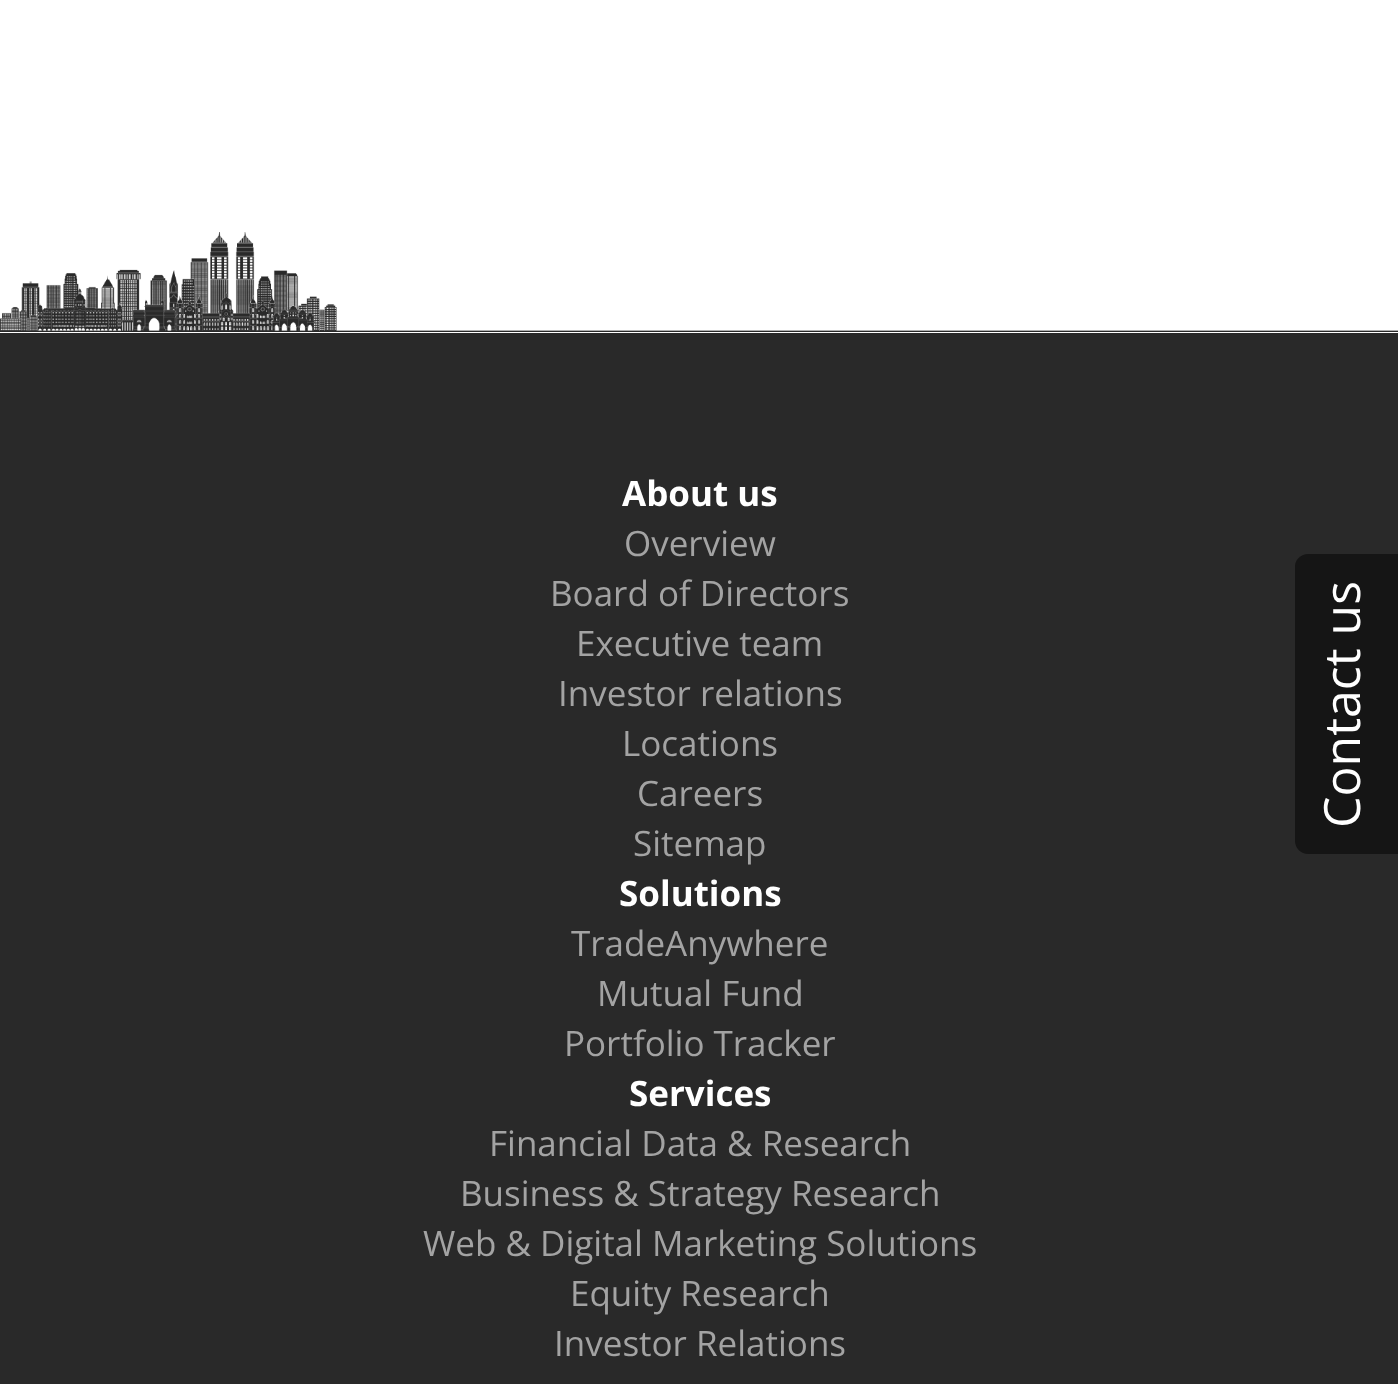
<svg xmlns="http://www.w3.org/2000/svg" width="1398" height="1384">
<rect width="100%" height="100%" fill="#fff"/>
<image x="0" y="232" width="1398" height="100" href="media/1.png"/>
<rect y="333" width="1398" height="1051" fill="#292929"/>
<text x="622" y="506" style="font-family:Open Sans;font-size:35px;font-weight:bold;fill:#fff">About us</text>
<text x="624" y="556" style="font-family:Open Sans;font-size:35px;fill:#a3a3a3">Overview</text>
<text x="550" y="606" style="font-family:Open Sans;font-size:35px;fill:#a3a3a3">Board of Directors</text>
<text x="576" y="656" style="font-family:Open Sans;font-size:35px;fill:#a3a3a3">Executive team</text>
<text x="558" y="706" style="font-family:Open Sans;font-size:35px;fill:#a3a3a3">Investor relations</text>
<text x="622" y="756" style="font-family:Open Sans;font-size:35px;fill:#a3a3a3">Locations</text>
<text x="637" y="806" style="font-family:Open Sans;font-size:35px;fill:#a3a3a3">Careers</text>
<text x="633" y="856" style="font-family:Open Sans;font-size:35px;fill:#a3a3a3">Sitemap</text>
<text x="619" y="906" style="font-family:Open Sans;font-size:35px;font-weight:bold;fill:#fff">Solutions</text>
<text x="571" y="956" style="font-family:Open Sans;font-size:35px;fill:#a3a3a3">TradeAnywhere</text>
<text x="597" y="1006" style="font-family:Open Sans;font-size:35px;fill:#a3a3a3">Mutual Fund</text>
<text x="564" y="1056" style="font-family:Open Sans;font-size:35px;fill:#a3a3a3">Portfolio Tracker</text>
<text x="629" y="1106" style="font-family:Open Sans;font-size:35px;font-weight:bold;fill:#fff">Services</text>
<text x="489" y="1156" style="font-family:Open Sans;font-size:35px;fill:#a3a3a3">Financial Data &amp; Research</text>
<text x="460" y="1206" style="font-family:Open Sans;font-size:35px;fill:#a3a3a3">Business &amp; Strategy Research</text>
<text x="423" y="1256" style="font-family:Open Sans;font-size:35px;fill:#a3a3a3">Web &amp; Digital Marketing Solutions</text>
<text x="570" y="1306" style="font-family:Open Sans;font-size:35px;fill:#a3a3a3">Equity Research</text>
<text x="554" y="1356" style="font-family:Open Sans;font-size:35px;fill:#a3a3a3">Investor Relations</text>
<path d="M1295 841v-275c0-6 6-12 13-12h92v300h-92c-7 0-13-6-13-13z" fill="#151515"/>
<text x="1360" y="828" transform="rotate(-90 1360 828)" style="font-family:Open Sans;font-size:50px;fill:#fff">Contact us</text>
</svg>
